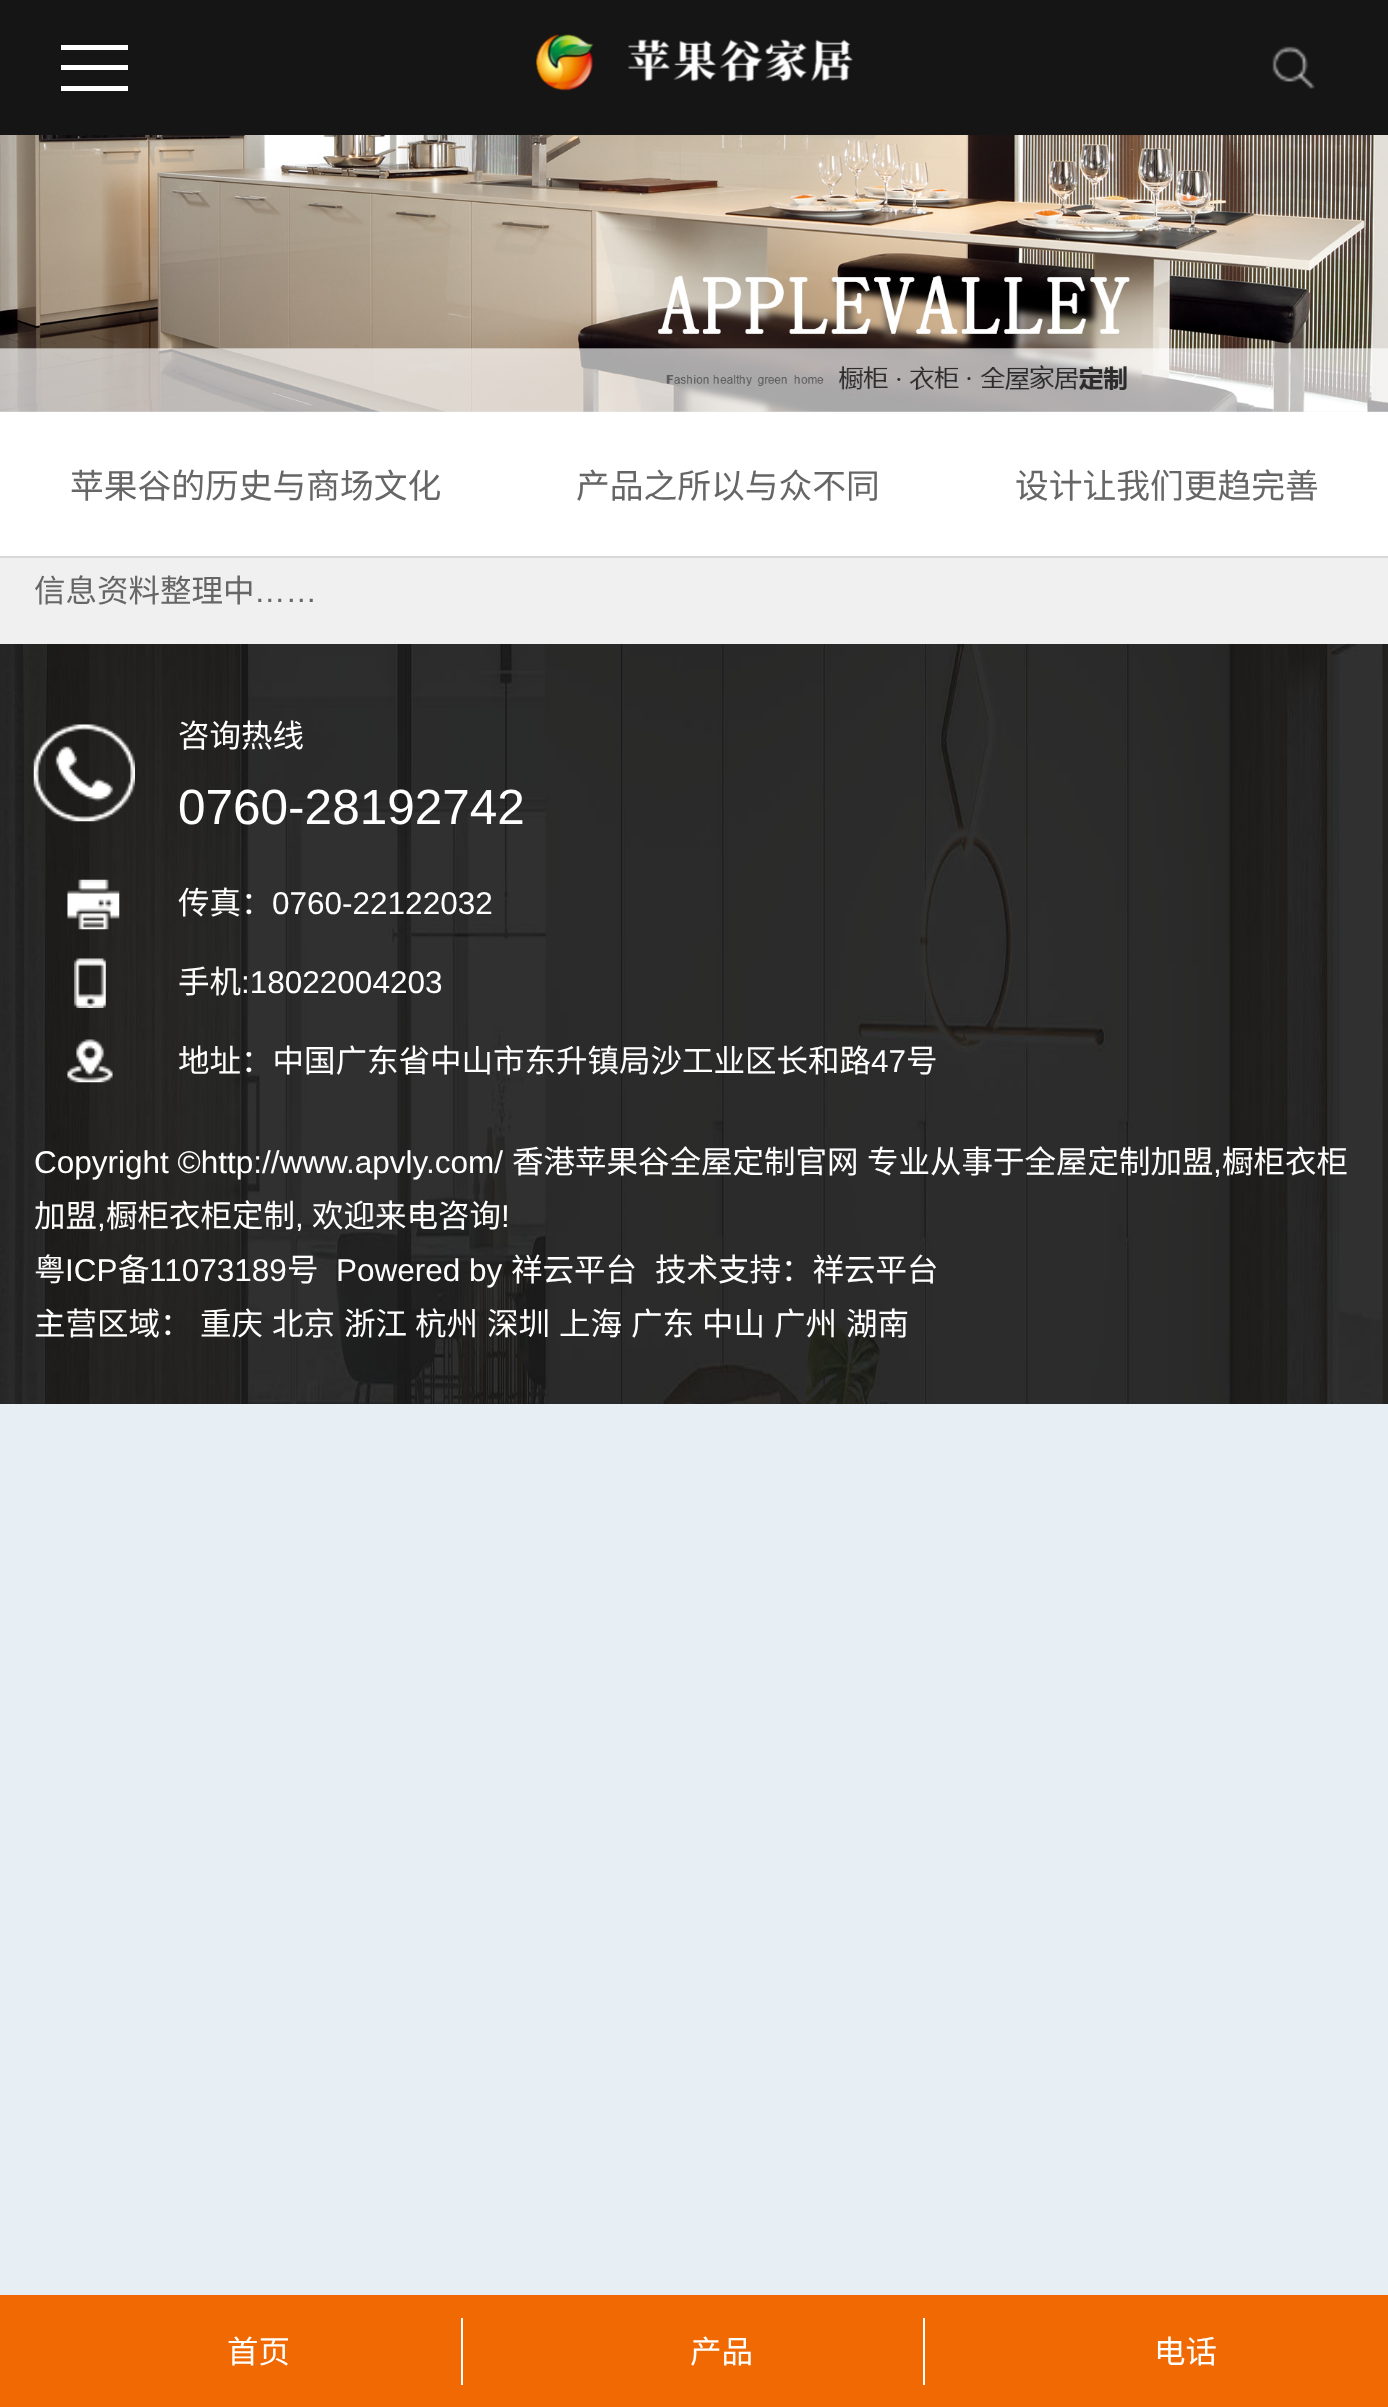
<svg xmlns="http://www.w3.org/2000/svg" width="1388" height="2407">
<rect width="100%" height="100%" fill="#e7eef4"/>
<rect width="1388" height="135" fill="#151515"/>
<rect x="61" y="45" width="67" height="5" fill="#fff"/>
<rect x="61" y="65" width="67" height="5" fill="#fff"/>
<rect x="61" y="86" width="67" height="5" fill="#fff"/>
<image x="536" y="34" width="317" height="57" href="media/1.png"/>
<image x="1272" y="46" width="43" height="43" href="media/2.png"/>
<image x="0" y="135" width="1388" height="277" href="media/3.png"/>
<rect y="412" width="1388" height="144" fill="#fff"/>
<rect y="556" width="1388" height="2" fill="#d8d8d8"/>
<text x="70" y="498" style="font-family:Noto Sans CJK SC;font-size:33.75px;fill:#666">苹果谷的历史与商场文化</text>
<text x="576" y="498" style="font-family:Noto Sans CJK SC;font-size:33.75px;fill:#666">产品之所以与众不同</text>
<text x="1015" y="498" style="font-family:Noto Sans CJK SC;font-size:33.75px;fill:#666">设计让我们更趋完善</text>
<rect y="558" width="1388" height="86" fill="#f0f0f0"/>
<text x="34" y="602" style="font-family:Noto Sans CJK SC;font-size:31.5px;fill:#666">信息资料整理中</text>
<text x="254" y="602" style="font-family:Liberation Sans;font-size:31.5px;fill:#666">……</text>
<image x="0" y="644" width="1388" height="760" href="media/4.png"/>
<image x="33" y="724" width="102" height="98" href="media/5.png"/>
<text x="178" y="747" style="font-family:Noto Sans CJK SC;font-size:31.5px;fill:#fff">咨询热线</text>
<text x="178" y="824" style="font-family:Liberation Sans;font-size:49.5px;fill:#fff">0760-28192742</text>
<image x="67" y="879" width="53" height="51" href="media/6.png"/>
<text x="178" y="914" style="font-family:Noto Sans CJK SC;font-size:31.5px;fill:#fff">传真：</text>
<text x="272" y="914" style="font-family:Liberation Sans;font-size:31.5px;fill:#fff">0760-22122032</text>
<image x="74" y="958" width="32" height="50" href="media/7.png"/>
<text x="178" y="993" style="font-family:Noto Sans CJK SC;font-size:31.5px;fill:#fff">手机</text>
<text x="241" y="993" style="font-family:Liberation Sans;font-size:31.5px;fill:#fff">:18022004203</text>
<image x="67" y="1039" width="46" height="44" href="media/8.png"/>
<text x="178" y="1072" style="font-family:Noto Sans CJK SC;font-size:31.5px;fill:#fff">地址：中国广东省中山市东升镇局沙工业区长和路</text>
<text x="871" y="1072" style="font-family:Liberation Sans;font-size:31.5px;fill:#fff">47</text>
<text x="906" y="1072" style="font-family:Noto Sans CJK SC;font-size:31.5px;fill:#fff">号</text>
<text x="34" y="1173" style="font-family:Liberation Sans;font-size:31.5px;fill:#fff">Copyright ©http://www.apvly.com/</text>
<text x="512" y="1173" style="font-family:Noto Sans CJK SC;font-size:31.5px;fill:#fff">香港苹果谷全屋定制官网</text>
<text x="867" y="1173" style="font-family:Noto Sans CJK SC;font-size:31.5px;fill:#fff">专业从事于全屋定制加盟</text>
<text x="1213" y="1173" style="font-family:Liberation Sans;font-size:31.5px;fill:#fff">,</text>
<text x="1222" y="1173" style="font-family:Noto Sans CJK SC;font-size:31.5px;fill:#fff">橱柜衣柜</text>
<text x="34" y="1227" style="font-family:Noto Sans CJK SC;font-size:31.5px;fill:#fff">加盟</text>
<text x="97" y="1227" style="font-family:Liberation Sans;font-size:31.5px;fill:#fff">,</text>
<text x="106" y="1227" style="font-family:Noto Sans CJK SC;font-size:31.5px;fill:#fff">橱柜衣柜定制</text>
<text x="295" y="1227" style="font-family:Liberation Sans;font-size:31.5px;fill:#fff">,</text>
<text x="312" y="1227" style="font-family:Noto Sans CJK SC;font-size:31.5px;fill:#fff">欢迎来电咨询</text>
<text x="501" y="1227" style="font-family:Liberation Sans;font-size:31.5px;fill:#fff">!</text>
<text x="34" y="1281" style="font-family:Noto Sans CJK SC;font-size:31.5px;fill:#fff">粤</text>
<text x="65" y="1281" style="font-family:Liberation Sans;font-size:31.5px;fill:#fff">ICP</text>
<text x="118" y="1281" style="font-family:Noto Sans CJK SC;font-size:31.5px;fill:#fff">备</text>
<text x="149" y="1281" style="font-family:Liberation Sans;font-size:31.5px;fill:#fff">11073189</text>
<text x="287" y="1281" style="font-family:Noto Sans CJK SC;font-size:31.5px;fill:#fff">号</text>
<text x="336" y="1281" style="font-family:Liberation Sans;font-size:31.5px;fill:#fff">Powered by</text>
<text x="511" y="1281" style="font-family:Noto Sans CJK SC;font-size:31.5px;fill:#fff">祥云平台</text>
<text x="655" y="1281" style="font-family:Noto Sans CJK SC;font-size:31.5px;fill:#fff">技术支持：祥云平台</text>
<text x="34" y="1335" style="font-family:Noto Sans CJK SC;font-size:31.5px;fill:#fff">主营区域：</text>
<text x="200" y="1335" style="font-family:Noto Sans CJK SC;font-size:31.5px;fill:#fff">重庆</text>
<text x="272" y="1335" style="font-family:Noto Sans CJK SC;font-size:31.5px;fill:#fff">北京</text>
<text x="344" y="1335" style="font-family:Noto Sans CJK SC;font-size:31.5px;fill:#fff">浙江</text>
<text x="415" y="1335" style="font-family:Noto Sans CJK SC;font-size:31.5px;fill:#fff">杭州</text>
<text x="487" y="1335" style="font-family:Noto Sans CJK SC;font-size:31.5px;fill:#fff">深圳</text>
<text x="559" y="1335" style="font-family:Noto Sans CJK SC;font-size:31.5px;fill:#fff">上海</text>
<text x="631" y="1335" style="font-family:Noto Sans CJK SC;font-size:31.5px;fill:#fff">广东</text>
<text x="702" y="1335" style="font-family:Noto Sans CJK SC;font-size:31.5px;fill:#fff">中山</text>
<text x="774" y="1335" style="font-family:Noto Sans CJK SC;font-size:31.5px;fill:#fff">广州</text>
<text x="846" y="1335" style="font-family:Noto Sans CJK SC;font-size:31.5px;fill:#fff">湖南</text>
<rect y="2295" width="1388" height="112" fill="#f16902"/>
<rect x="461" y="2318" width="2" height="67" fill="#fff"/>
<text x="227" y="2363" style="font-family:Noto Sans CJK SC;font-size:31.5px;fill:#fff">首页</text>
<rect x="923" y="2318" width="2" height="67" fill="#fff"/>
<text x="690" y="2363" style="font-family:Noto Sans CJK SC;font-size:31.5px;fill:#fff">产品</text>
<text x="1154" y="2363" style="font-family:Noto Sans CJK SC;font-size:31.5px;fill:#fff">电话</text>
</svg>
